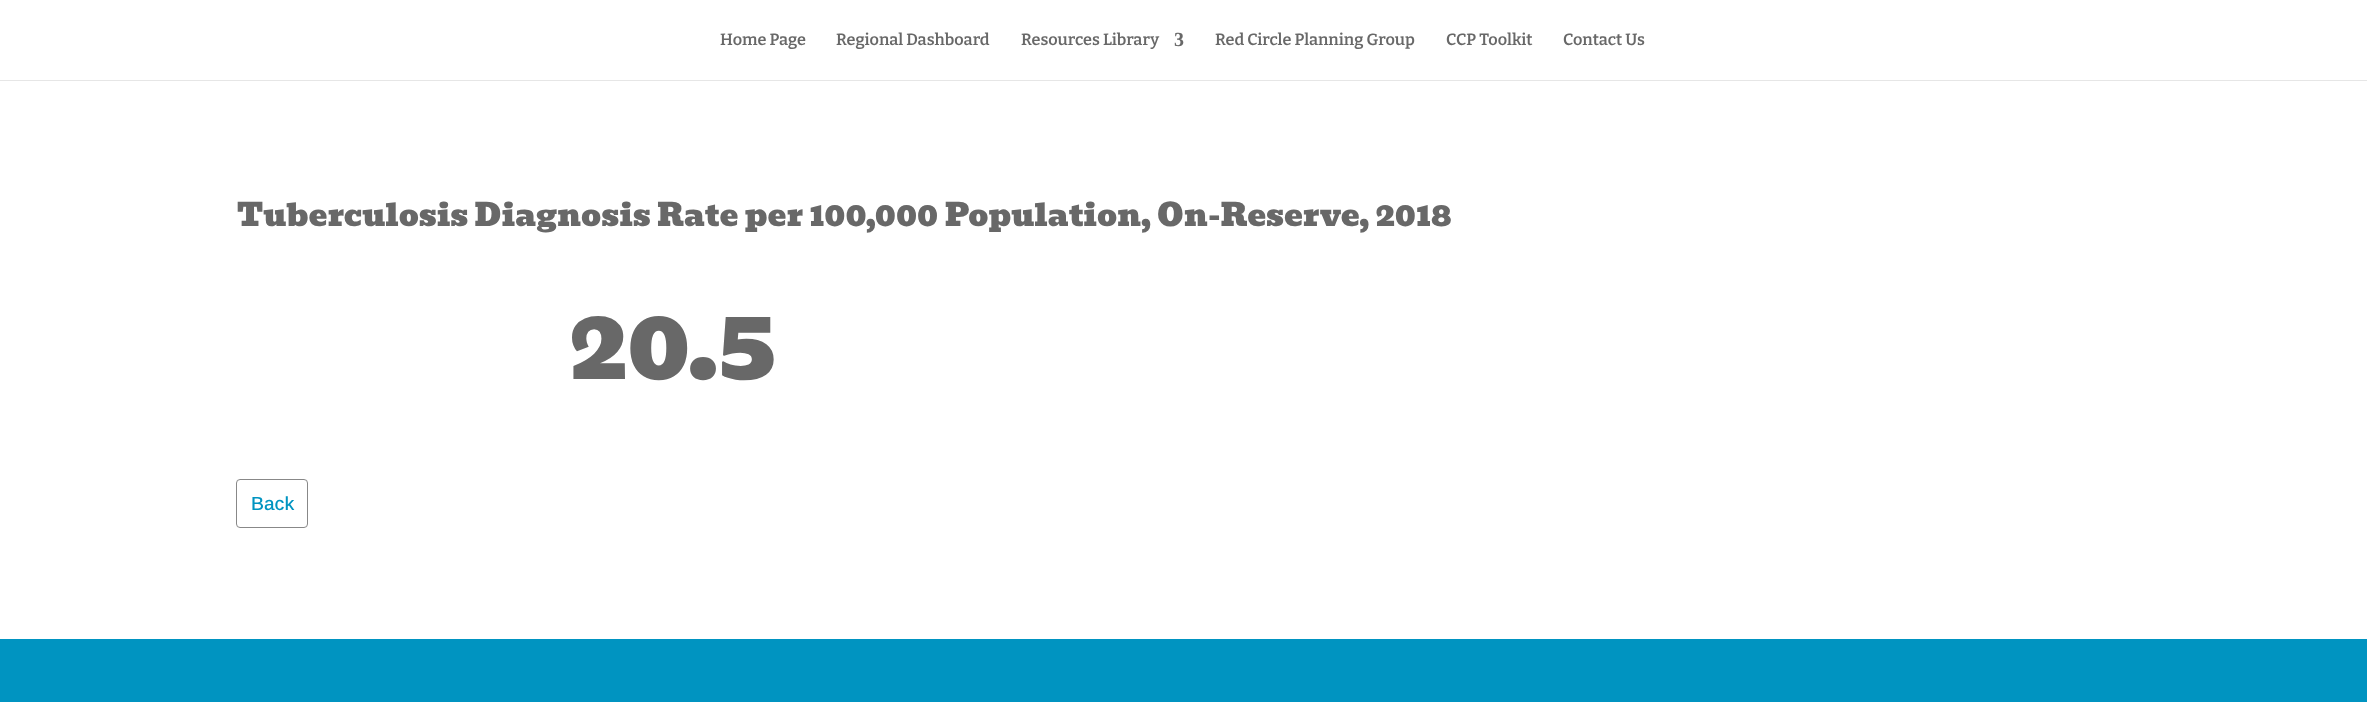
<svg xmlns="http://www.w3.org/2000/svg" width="2367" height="702">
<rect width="100%" height="100%" fill="#fff"/>
<path d="M0 80v1h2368v-80v79z" fill="#e6e6e6"/>
<text x="720" y="45" style="font-family:Bitter;font-size:16.25px;font-weight:600;fill:#686868">Home Page</text>
<text x="836" y="45" style="font-family:Bitter;font-size:16.25px;font-weight:600;fill:#686868">Regional Dashboard</text>
<text x="1021" y="45" style="font-family:Bitter;font-size:16.25px;font-weight:600;fill:#686868">Resources Library</text>
<text x="1174" y="46" style="font-family:Liberation Serif;font-size:20px;font-weight:bold;fill:#686868">3</text>
<text x="1215" y="45" style="font-family:Bitter;font-size:16.25px;font-weight:600;fill:#686868">Red Circle Planning Group</text>
<text x="1446" y="45" style="font-family:Bitter;font-size:16.25px;font-weight:600;fill:#686868">CCP Toolkit</text>
<text x="1563" y="45" style="font-family:Bitter;font-size:16.25px;font-weight:600;fill:#686868">Contact Us</text>
<text x="237" y="226" style="font-family:Bevan;font-size:31.25px;fill:#686868">Tuberculosis Diagnosis Rate per 100,000 Population, On-Reserve, 2018</text>
<text x="569" y="379" style="font-family:Bevan;font-size:94px;fill:#686868">20.5</text>
<rect x="236.5" y="479.5" width="71" height="48" rx="3.5" fill="none" stroke="#888"/>
<text x="251" y="510" style="font-family:Arimo;font-size:19px;font-weight:500;fill:#0094c1">Back</text>
<rect y="639" width="2367" height="63" fill="#0094c1"/>
</svg>
